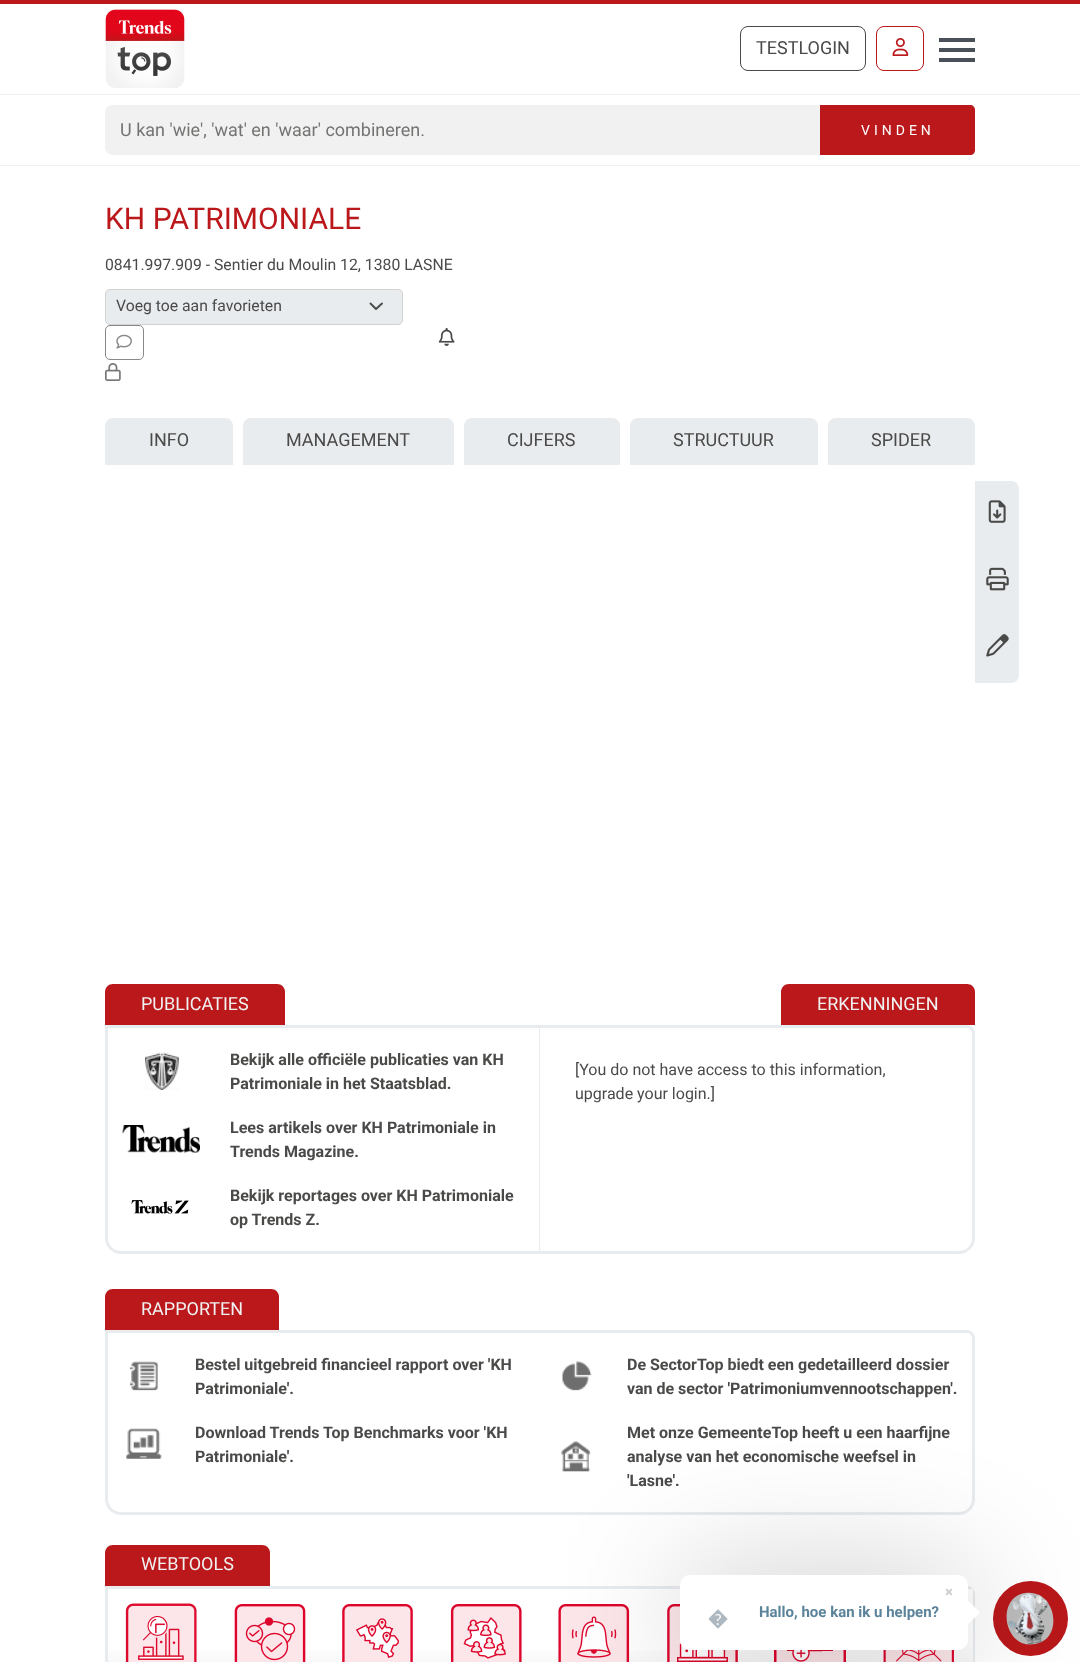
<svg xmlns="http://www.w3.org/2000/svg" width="1080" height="1662">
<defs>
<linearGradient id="g1" gradientUnits="userSpaceOnUse" x1="162" y1="1589" x2="162" y2="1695"><stop offset="0" stop-color="#fff"/><stop offset="0.5" stop-color="#fff"/><stop offset="1" stop-color="#f0eeee"/></linearGradient>
<linearGradient id="g2" gradientUnits="userSpaceOnUse" x1="270" y1="1589" x2="270" y2="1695"><stop offset="0" stop-color="#fff"/><stop offset="0.5" stop-color="#fff"/><stop offset="1" stop-color="#f0eeee"/></linearGradient>
<linearGradient id="g3" gradientUnits="userSpaceOnUse" x1="378" y1="1589" x2="378" y2="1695"><stop offset="0" stop-color="#fff"/><stop offset="0.5" stop-color="#fff"/><stop offset="1" stop-color="#f0eeee"/></linearGradient>
<linearGradient id="g4" gradientUnits="userSpaceOnUse" x1="486" y1="1589" x2="486" y2="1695"><stop offset="0" stop-color="#fff"/><stop offset="0.5" stop-color="#fff"/><stop offset="1" stop-color="#f0eeee"/></linearGradient>
<linearGradient id="g5" gradientUnits="userSpaceOnUse" x1="594" y1="1589" x2="594" y2="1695"><stop offset="0" stop-color="#fff"/><stop offset="0.5" stop-color="#fff"/><stop offset="1" stop-color="#f0eeee"/></linearGradient>
<linearGradient id="g6" gradientUnits="userSpaceOnUse" x1="703" y1="1589" x2="703" y2="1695"><stop offset="0" stop-color="#fff"/><stop offset="0.5" stop-color="#fff"/><stop offset="1" stop-color="#f0eeee"/></linearGradient>
<linearGradient id="g7" gradientUnits="userSpaceOnUse" x1="811" y1="1589" x2="811" y2="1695"><stop offset="0" stop-color="#fff"/><stop offset="0.5" stop-color="#fff"/><stop offset="1" stop-color="#f0eeee"/></linearGradient>
<linearGradient id="g8" gradientUnits="userSpaceOnUse" x1="919" y1="1589" x2="919" y2="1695"><stop offset="0" stop-color="#fff"/><stop offset="0.5" stop-color="#fff"/><stop offset="1" stop-color="#f0eeee"/></linearGradient>
<clipPath id="clip1"><rect x="709" y="1581" width="50" height="63"/></clipPath>
</defs>
<rect width="100%" height="100%" fill="#fff"/>
<rect width="1080" height="4" fill="#ba181a"/>
<rect y="165" width="1080" height="1" fill="#f1f1f1"/>
<image x="105" y="9" width="80" height="79" href="media/1.png"/>
<rect x="740.5" y="26.5" width="125" height="44" rx="7.5" fill="none" stroke="#4a4a4a"/>
<text x="756" y="54" style="font-family:Roboto;font-size:18px;fill:#4a4a49">TESTLOGIN</text>
<rect x="876.5" y="26.5" width="47" height="44" rx="7.5" fill="none" stroke="#ba181a"/>
<image x="892" y="38" width="17" height="18" href="media/2.png"/>
<rect x="939" y="38" width="36" height="4" fill="#495057"/>
<rect x="939" y="48" width="36" height="4" fill="#495057"/>
<rect x="939" y="58" width="36" height="4" fill="#495057"/>
<rect y="94" width="1080" height="1" fill="#f1f1f1"/>
<path d="M113 105h708v50h-708c-4.5 0-8-3.5-8-8v-34c0-4.5 3.5-8 8-8z" fill="#f1f1f1"/>
<text x="120" y="136" style="font-family:Roboto;font-size:18px;fill:#747473">U kan 'wie', 'wat' en 'waar' combineren.</text>
<path d="M820 105h150c3 0 5 2 5 5v40c0 3-2 5-5 5h-150z" fill="#ba181a"/>
<text x="861" y="135" style="font-family:Roboto;font-size:14px;letter-spacing:4px;fill:#fff">VINDEN</text>
<text x="105" y="229" style="font-family:Roboto;font-size:30px;fill:#ba181a">KH PATRIMONIALE</text>
<text x="105" y="270" style="font-family:Roboto;font-size:15.75px;fill:#4a4a49">0841.997.909 - Sentier du Moulin 12, 1380 LASNE</text>
<rect x="105" y="289" width="298" height="36" rx="5" fill="#e9ecef"/>
<path d="M370.5 303.5l5.5 5.5l6-5.5" fill="none" stroke="#4a4a49" stroke-width="1.9" stroke-linecap="round" stroke-linejoin="round"/>
<rect x="105.5" y="289.5" width="297" height="35" rx="4.5" fill="none" stroke="#d2d2d1"/>
<text x="116" y="311" style="font-family:Roboto;font-size:15.75px;fill:#4a4a49">Voeg toe aan favorieten</text>
<rect x="105.5" y="325.5" width="38" height="34" rx="4.5" fill="none" stroke="#898989"/>
<image x="116" y="334" width="16" height="15" href="media/3.png"/>
<image x="105" y="363" width="16" height="18" href="media/4.png"/>
<image x="438" y="328" width="17" height="18" href="media/5.png"/>
<path d="M113 418h112c4.5 0 8 3.5 8 8v39h-128v-39c0-4.5 3.5-8 8-8z" fill="#e9ecef"/>
<text x="149" y="446" style="font-family:Roboto;font-size:18px;fill:#4a4a49">INFO</text>
<path d="M251 418h195c4.5 0 8 3.5 8 8v39h-211v-39c0-4.5 3.5-8 8-8z" fill="#e9ecef"/>
<text x="286" y="446" style="font-family:Roboto;font-size:18px;fill:#4a4a49">MANAGEMENT</text>
<path d="M472 418h140c4.5 0 8 3.5 8 8v39h-156v-39c0-4.5 3.5-8 8-8z" fill="#e9ecef"/>
<text x="507" y="446" style="font-family:Roboto;font-size:18px;fill:#4a4a49">CIJFERS</text>
<path d="M638 418h172c4.5 0 8 3.5 8 8v39h-188v-39c0-4.5 3.5-8 8-8z" fill="#e9ecef"/>
<text x="673" y="446" style="font-family:Roboto;font-size:18px;fill:#4a4a49">STRUCTUUR</text>
<path d="M836 418h131c4.5 0 8 3.5 8 8v39h-147v-39c0-4.5 3.5-8 8-8z" fill="#e9ecef"/>
<text x="871" y="446" style="font-family:Roboto;font-size:18px;fill:#4a4a49">SPIDER</text>
<path d="M975 481h36c4.5 0 8 3.5 8 8v186c0 4.5-3.5 8-8 8h-36z" fill="#e9ecef"/>
<image x="988" y="500" width="18" height="23" href="media/6.png"/>
<image x="986" y="567" width="23" height="24" href="media/7.png"/>
<image x="986" y="634" width="23" height="23" href="media/8.png"/>
<path d="M113 984h164c4.5 0 8 3.5 8 8v33h-180v-33c0-4.5 3.5-8 8-8z" fill="#ba181a"/>
<text x="141" y="1010" style="font-family:Roboto;font-size:18px;fill:#f1f1f1">PUBLICATIES</text>
<path d="M789 984h178c4.5 0 8 3.5 8 8v33h-194v-33c0-4.5 3.5-8 8-8z" fill="#ba181a"/>
<text x="817" y="1010" style="font-family:Roboto;font-size:18px;fill:#f1f1f1">ERKENNINGEN</text>
<path d="M106.5 1026.5h860.5c3.5 0 6.5 3 6.5 6.5v205c0 8-6.5 14.5-14.5 14.5h-838c-8 0-14.5-6.5-14.5-14.5z" fill="none" stroke="#e9ecef" stroke-width="3"/>
<rect x="539" y="1028" width="1" height="223" fill="#e9ecef"/>
<image x="145" y="1052" width="34" height="38" href="media/9.png"/>
<text x="230" y="1065" style="font-family:Roboto;font-size:16px;font-weight:bold;fill:#4a4a49">Bekijk alle officiële publicaties van KH</text>
<text x="230" y="1089" style="font-family:Roboto;font-size:16px;font-weight:bold;fill:#4a4a49">Patrimoniale in het Staatsblad.</text>
<image x="122" y="1125" width="78" height="28" href="media/10.png"/>
<text x="230" y="1133" style="font-family:Roboto;font-size:16px;font-weight:bold;fill:#4a4a49">Lees artikels over KH Patrimoniale in</text>
<text x="230" y="1157" style="font-family:Roboto;font-size:16px;font-weight:bold;fill:#4a4a49">Trends Magazine.</text>
<image x="131" y="1200" width="58" height="14" href="media/11.png"/>
<text x="230" y="1201" style="font-family:Roboto;font-size:16px;font-weight:bold;fill:#4a4a49">Bekijk reportages over KH Patrimoniale</text>
<text x="230" y="1225" style="font-family:Roboto;font-size:16px;font-weight:bold;fill:#4a4a49">op Trends Z.</text>
<text x="575" y="1075" style="font-family:Roboto;font-size:16px;fill:#4a4a49">[You do not have access to this information,</text>
<text x="575" y="1099" style="font-family:Roboto;font-size:16px;fill:#4a4a49">upgrade your login.]</text>
<path d="M113 1289h158c4.5 0 8 3.5 8 8v33h-174v-33c0-4.5 3.5-8 8-8z" fill="#ba181a"/>
<text x="141" y="1315" style="font-family:Roboto;font-size:18px;fill:#f1f1f1">RAPPORTEN</text>
<path d="M106.5 1331.5h860.5c3.5 0 6.5 3 6.5 6.5v161c0 8-6.5 14.5-14.5 14.5h-838c-8 0-14.5-6.5-14.5-14.5z" fill="none" stroke="#e9ecef" stroke-width="3"/>
<image x="129" y="1361" width="30" height="30" href="media/12.png"/>
<text x="195" y="1370" style="font-family:Roboto;font-size:16px;font-weight:bold;fill:#4a4a49">Bestel uitgebreid financieel rapport over 'KH</text>
<text x="195" y="1394" style="font-family:Roboto;font-size:16px;font-weight:bold;fill:#4a4a49">Patrimoniale'.</text>
<image x="562" y="1361" width="30" height="30" href="media/13.png"/>
<text x="627" y="1370" style="font-family:Roboto;font-size:16px;font-weight:bold;fill:#4a4a49">De SectorTop biedt een gedetailleerd dossier</text>
<text x="627" y="1394" style="font-family:Roboto;font-size:16px;font-weight:bold;fill:#4a4a49">van de sector 'Patrimoniumvennootschappen'.</text>
<image x="126" y="1428" width="36" height="31" href="media/14.png"/>
<text x="195" y="1438" style="font-family:Roboto;font-size:16px;font-weight:bold;fill:#4a4a49">Download Trends Top Benchmarks voor 'KH</text>
<text x="195" y="1462" style="font-family:Roboto;font-size:16px;font-weight:bold;fill:#4a4a49">Patrimoniale'.</text>
<image x="561" y="1441" width="30" height="31" href="media/15.png"/>
<text x="627" y="1438" style="font-family:Roboto;font-size:16px;font-weight:bold;fill:#4a4a49">Met onze GemeenteTop heeft u een haarfijne</text>
<text x="627" y="1462" style="font-family:Roboto;font-size:16px;font-weight:bold;fill:#4a4a49">analyse van het economische weefsel in</text>
<text x="627" y="1486" style="font-family:Roboto;font-size:16px;font-weight:bold;fill:#4a4a49">'Lasne'.</text>
<path d="M113 1545h149c4.5 0 8 3.5 8 8v33h-165v-33c0-4.5 3.5-8 8-8z" fill="#ba181a"/>
<text x="141" y="1570" style="font-family:Roboto;font-size:18px;fill:#f1f1f1">WEBTOOLS</text>
<path d="M106.5 1587.5h860.5c3.5 0 6.5 3 6.5 6.5v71c0 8-6.5 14.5-14.5 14.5h-838c-8 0-14.5-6.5-14.5-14.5z" fill="none" stroke="#e9ecef" stroke-width="3"/>
<rect x="108" y="1650" width="108" height="12" fill="url(#g1)"/>
<image x="125" y="1603" width="72" height="59" href="media/16.png"/>
<rect x="216" y="1650" width="108" height="12" fill="url(#g2)"/>
<image x="234" y="1604" width="72" height="58" href="media/17.png"/>
<rect x="324" y="1650" width="109" height="12" fill="url(#g3)"/>
<image x="342" y="1604" width="71" height="58" href="media/18.png"/>
<rect x="433" y="1650" width="107" height="12" fill="url(#g4)"/>
<image x="450" y="1604" width="72" height="58" href="media/19.png"/>
<rect x="540" y="1650" width="109" height="12" fill="url(#g5)"/>
<image x="558" y="1604" width="72" height="58" href="media/20.png"/>
<rect x="649" y="1650" width="107" height="12" fill="url(#g6)"/>
<image x="667" y="1604" width="71" height="58" href="media/21.png"/>
<rect x="756" y="1650" width="109" height="12" fill="url(#g7)"/>
<image x="774" y="1650" width="72" height="12" href="media/22.png"/>
<rect x="865" y="1589" width="108" height="73" fill="url(#g8)"/>
<image x="883" y="1650" width="71" height="12" href="media/23.png"/>
<circle cx="1030.5" cy="1618.5" r="37.5" fill="#ba181a"/>
<path d="M1025 1593c31-5 40 46 10 51c-31 6-40-46-10-51z" fill="#bcbcbc"/>
<image x="1008" y="1593" width="41" height="52" href="media/24.png"/>
<rect x="679" y="1574" width="292" height="80" rx="13" fill="#00000038" filter="blur(62.5px)"/>
<rect x="680" y="1575" width="288" height="75" rx="10" fill="#fff"/>
<text x="945" y="1597" style="font-family:Roboto;font-size:15px;font-weight:bold;fill:#ccc">×</text>
<g clip-path="url(#clip1)">
<text x="708" y="1625" style="font-family:Noto Color Emoji;font-size:20px;font-weight:bold;fill:#aeb8c0">�</text>
</g>
<text x="759" y="1617" style="font-family:Roboto;font-size:15px;font-weight:bold;fill:#5b839a">Hallo, hoe kan ik u helpen?</text>
<path d="M961 1631v-37.5l19 19z" fill="#fff"/>
</svg>
